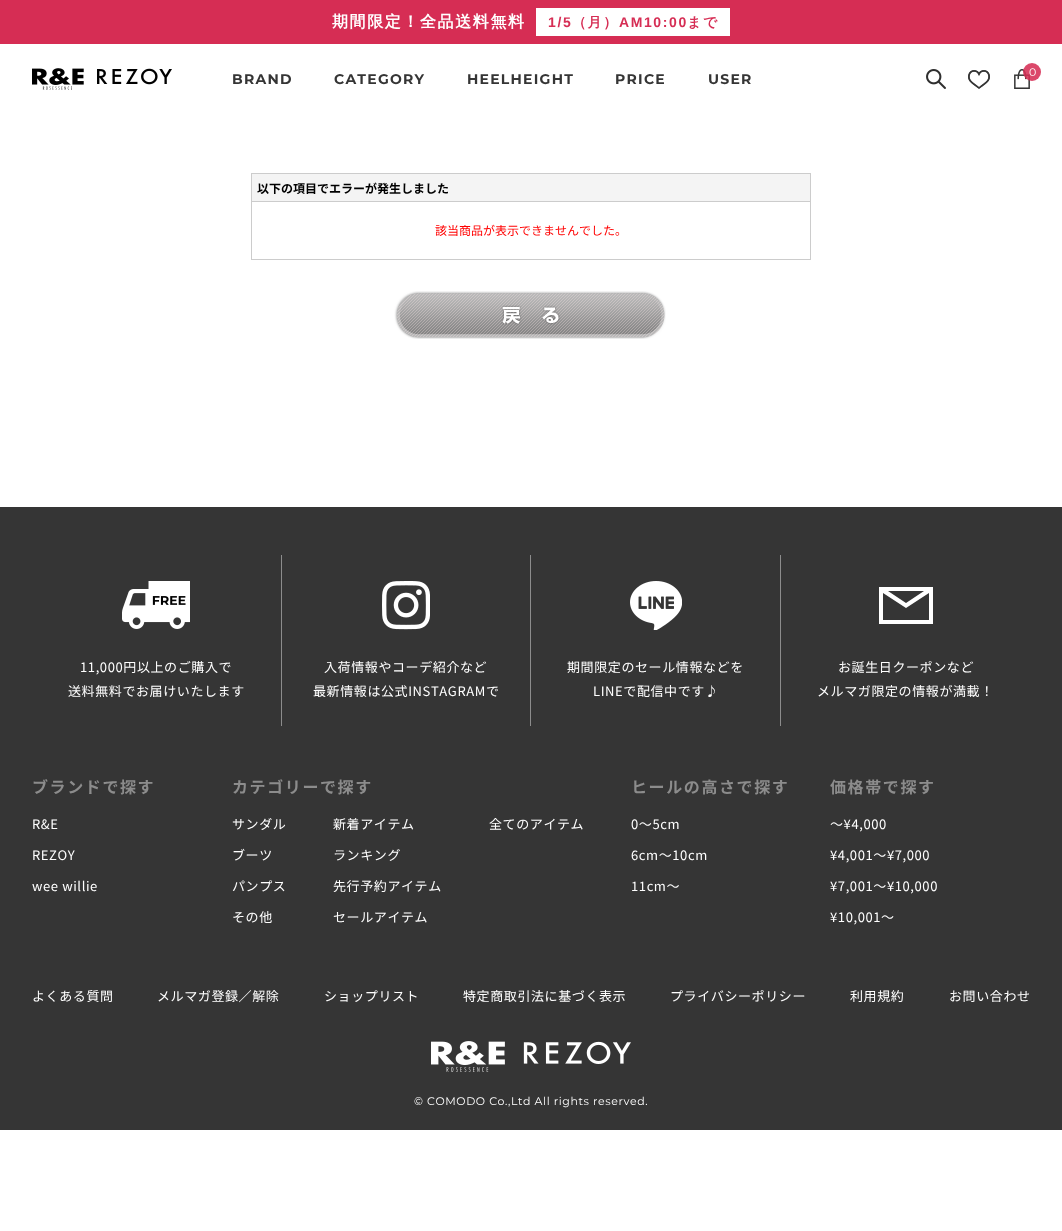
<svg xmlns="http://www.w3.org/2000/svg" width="1062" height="1231">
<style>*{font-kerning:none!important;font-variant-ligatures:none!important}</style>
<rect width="100%" height="100%" fill="#fff"/>
<rect width="1062" height="44" fill="#d62d54"/>
<text x="332" y="27" style="font-family:WenQuanYi Zen Hei;font-size:16px;font-weight:bold;letter-spacing:1.6px;fill:#fff">期間限定！全品送料無料</text>
<rect x="536" y="8" width="194" height="28" fill="#fff"/>
<text x="548" y="27" style="font-family:Liberation Sans;font-size:14px;font-weight:bold;letter-spacing:1.6px;fill:#d62d54">1/5</text>
<text x="572" y="27" style="font-family:WenQuanYi Zen Hei;font-size:14px;font-weight:bold;letter-spacing:1.6px;fill:#d62d54">（月）</text>
<text x="619" y="27" style="font-family:Liberation Sans;font-size:14px;font-weight:bold;letter-spacing:1.6px;fill:#d62d54">AM10:00</text>
<text x="687" y="27" style="font-family:WenQuanYi Zen Hei;font-size:14px;font-weight:bold;letter-spacing:1.6px;fill:#d62d54">まで</text>
<image x="32" y="68" width="140" height="22" href="media/1.png"/>
<image x="926" y="69" width="20" height="20" href="media/2.png"/>
<image x="968" y="70" width="22" height="19" href="media/3.png"/>
<image x="1014" y="69" width="16" height="20" href="media/4.png"/>
<circle cx="1032" cy="72" r="9" fill="#d62d54de"/>
<text x="1029" y="76" style="font-family:Montserrat;font-size:11px;fill:#fff">0</text>
<text x="232" y="84" style="font-family:Montserrat;font-size:14px;font-weight:bold;letter-spacing:1.25px;fill:#353535">BRAND</text>
<text x="334" y="84" style="font-family:Montserrat;font-size:14px;font-weight:bold;letter-spacing:1.25px;fill:#353535">CATEGORY</text>
<text x="467" y="84" style="font-family:Montserrat;font-size:14px;font-weight:bold;letter-spacing:1.25px;fill:#353535">HEELHEIGHT</text>
<text x="615" y="84" style="font-family:Montserrat;font-size:14px;font-weight:bold;letter-spacing:1.25px;fill:#353535">PRICE</text>
<text x="708" y="84" style="font-family:Montserrat;font-size:14px;font-weight:bold;letter-spacing:1.25px;fill:#353535">USER</text>
<rect x="251.5" y="173.5" width="559" height="86" fill="none" stroke="#ccc"/>
<rect x="252" y="174" width="558" height="27" fill="#f4f4f4"/>
<rect x="252" y="201" width="558" height="1" fill="#ccc"/>
<text x="257" y="193" style="font-family:Noto Sans JP;font-size:12px;font-weight:bold;fill:#000">以下の項目でエラーが発生しました</text>
<text x="435" y="235" style="font-family:Noto Sans JP;font-size:12px;fill:#f00">該当商品が表示できませんでした。</text>
<image x="394" y="291" width="272" height="48" href="media/5.png"/>
<rect y="507" width="1062" height="623" fill="#353535"/>
<image x="122" y="581" width="68" height="48" href="media/6.png"/>
<text x="80" y="672" style="font-family:Noto Sans JP;font-size:13px;letter-spacing:0.6px;fill:#fff">11,000円以上のご購入で</text>
<text x="68" y="696" style="font-family:Noto Sans JP;font-size:13px;letter-spacing:0.6px;fill:#fff">送料無料でお届けいたします</text>
<rect x="281" y="555" width="1" height="171" fill="#8c8c8c"/>
<image x="382" y="581" width="48" height="49" href="media/7.png"/>
<text x="324" y="672" style="font-family:Noto Sans JP;font-size:13px;letter-spacing:0.6px;fill:#fff">入荷情報やコーデ紹介など</text>
<text x="313" y="696" style="font-family:Noto Sans JP;font-size:13px;letter-spacing:0.6px;fill:#fff">最新情報は公式INSTAGRAMで</text>
<rect x="530" y="555" width="1" height="171" fill="#8c8c8c"/>
<image x="630" y="581" width="52" height="49" href="media/8.png"/>
<text x="567" y="672" style="font-family:Noto Sans JP;font-size:13px;letter-spacing:0.6px;fill:#fff">期間限定のセール情報などを</text>
<text x="593" y="696" style="font-family:Noto Sans JP;font-size:13px;letter-spacing:0.6px;fill:#fff">LINEで配信中です♪</text>
<rect x="780" y="555" width="1" height="171" fill="#8c8c8c"/>
<path d="M879 587v37h54v-37zm45 4l-18 12l-18-12zm5 29h-46v-27l23 15l23-15z" fill="#fff"/>
<text x="838" y="672" style="font-family:Noto Sans JP;font-size:13px;letter-spacing:0.6px;fill:#fff">お誕生日クーポンなど</text>
<text x="817" y="696" style="font-family:Noto Sans JP;font-size:13px;letter-spacing:0.6px;fill:#fff">メルマガ限定の情報が満載！</text>
<text x="32" y="793" style="font-family:Noto Sans JP;font-size:16px;font-weight:bold;letter-spacing:1.6px;fill:#8c8c8c">ブランドで探す</text>
<text x="32" y="829" style="font-family:Noto Sans JP;font-size:13px;letter-spacing:0.6px;fill:#fff">R&amp;E</text>
<text x="32" y="860" style="font-family:Noto Sans JP;font-size:13px;letter-spacing:0.6px;fill:#fff">REZOY</text>
<text x="32" y="891" style="font-family:Noto Sans JP;font-size:13px;letter-spacing:0.6px;fill:#fff">wee willie</text>
<text x="232" y="793" style="font-family:Noto Sans JP;font-size:16px;font-weight:bold;letter-spacing:1.6px;fill:#8c8c8c">カテゴリーで探す</text>
<text x="232" y="829" style="font-family:Noto Sans JP;font-size:13px;letter-spacing:0.6px;fill:#fff">サンダル</text>
<text x="333" y="829" style="font-family:Noto Sans JP;font-size:13px;letter-spacing:0.6px;fill:#fff">新着アイテム</text>
<text x="489" y="829" style="font-family:Noto Sans JP;font-size:13px;letter-spacing:0.6px;fill:#fff">全てのアイテム</text>
<text x="232" y="860" style="font-family:Noto Sans JP;font-size:13px;letter-spacing:0.6px;fill:#fff">ブーツ</text>
<text x="333" y="860" style="font-family:Noto Sans JP;font-size:13px;letter-spacing:0.6px;fill:#fff">ランキング</text>
<text x="232" y="891" style="font-family:Noto Sans JP;font-size:13px;letter-spacing:0.6px;fill:#fff">パンプス</text>
<text x="333" y="891" style="font-family:Noto Sans JP;font-size:13px;letter-spacing:0.6px;fill:#fff">先行予約アイテム</text>
<text x="232" y="922" style="font-family:Noto Sans JP;font-size:13px;letter-spacing:0.6px;fill:#fff">その他</text>
<text x="333" y="922" style="font-family:Noto Sans JP;font-size:13px;letter-spacing:0.6px;fill:#fff">セールアイテム</text>
<text x="631" y="793" style="font-family:Noto Sans JP;font-size:16px;font-weight:bold;letter-spacing:1.6px;fill:#8c8c8c">ヒールの高さで探す</text>
<text x="631" y="829" style="font-family:Noto Sans JP;font-size:13px;letter-spacing:0.6px;fill:#fff">0〜5cm</text>
<text x="631" y="860" style="font-family:Noto Sans JP;font-size:13px;letter-spacing:0.6px;fill:#fff">6cm〜10cm</text>
<text x="631" y="891" style="font-family:Noto Sans JP;font-size:13px;letter-spacing:0.6px;fill:#fff">11cm〜</text>
<text x="830" y="793" style="font-family:Noto Sans JP;font-size:16px;font-weight:bold;letter-spacing:1.6px;fill:#8c8c8c">価格帯で探す</text>
<text x="830" y="829" style="font-family:Noto Sans JP;font-size:13px;letter-spacing:0.6px;fill:#fff">〜¥4,000</text>
<text x="830" y="860" style="font-family:Noto Sans JP;font-size:13px;letter-spacing:0.6px;fill:#fff">¥4,001〜¥7,000</text>
<text x="830" y="891" style="font-family:Noto Sans JP;font-size:13px;letter-spacing:0.6px;fill:#fff">¥7,001〜¥10,000</text>
<text x="830" y="922" style="font-family:Noto Sans JP;font-size:13px;letter-spacing:0.6px;fill:#fff">¥10,001〜</text>
<text x="32" y="1001" style="font-family:Noto Sans JP;font-size:13px;letter-spacing:0.6px;fill:#fff">よくある質問</text>
<text x="157" y="1001" style="font-family:Noto Sans JP;font-size:13px;letter-spacing:0.6px;fill:#fff">メルマガ登録／解除</text>
<text x="324" y="1001" style="font-family:Noto Sans JP;font-size:13px;letter-spacing:0.6px;fill:#fff">ショップリスト</text>
<text x="463" y="1001" style="font-family:Noto Sans JP;font-size:13px;letter-spacing:0.6px;fill:#fff">特定商取引法に基づく表示</text>
<text x="670" y="1001" style="font-family:Noto Sans JP;font-size:13px;letter-spacing:0.6px;fill:#fff">プライバシーポリシー</text>
<text x="850" y="1001" style="font-family:Noto Sans JP;font-size:13px;letter-spacing:0.6px;fill:#fff">利用規約</text>
<text x="949" y="1001" style="font-family:Noto Sans JP;font-size:13px;letter-spacing:0.6px;fill:#fff">お問い合わせ</text>
<image x="431" y="1041" width="200" height="31" href="media/9.png"/>
<text x="414" y="1105" style="font-family:Montserrat;font-size:11px;letter-spacing:0.6px;fill:#fff">© COMODO Co.,Ltd All rights reserved.</text>
</svg>
